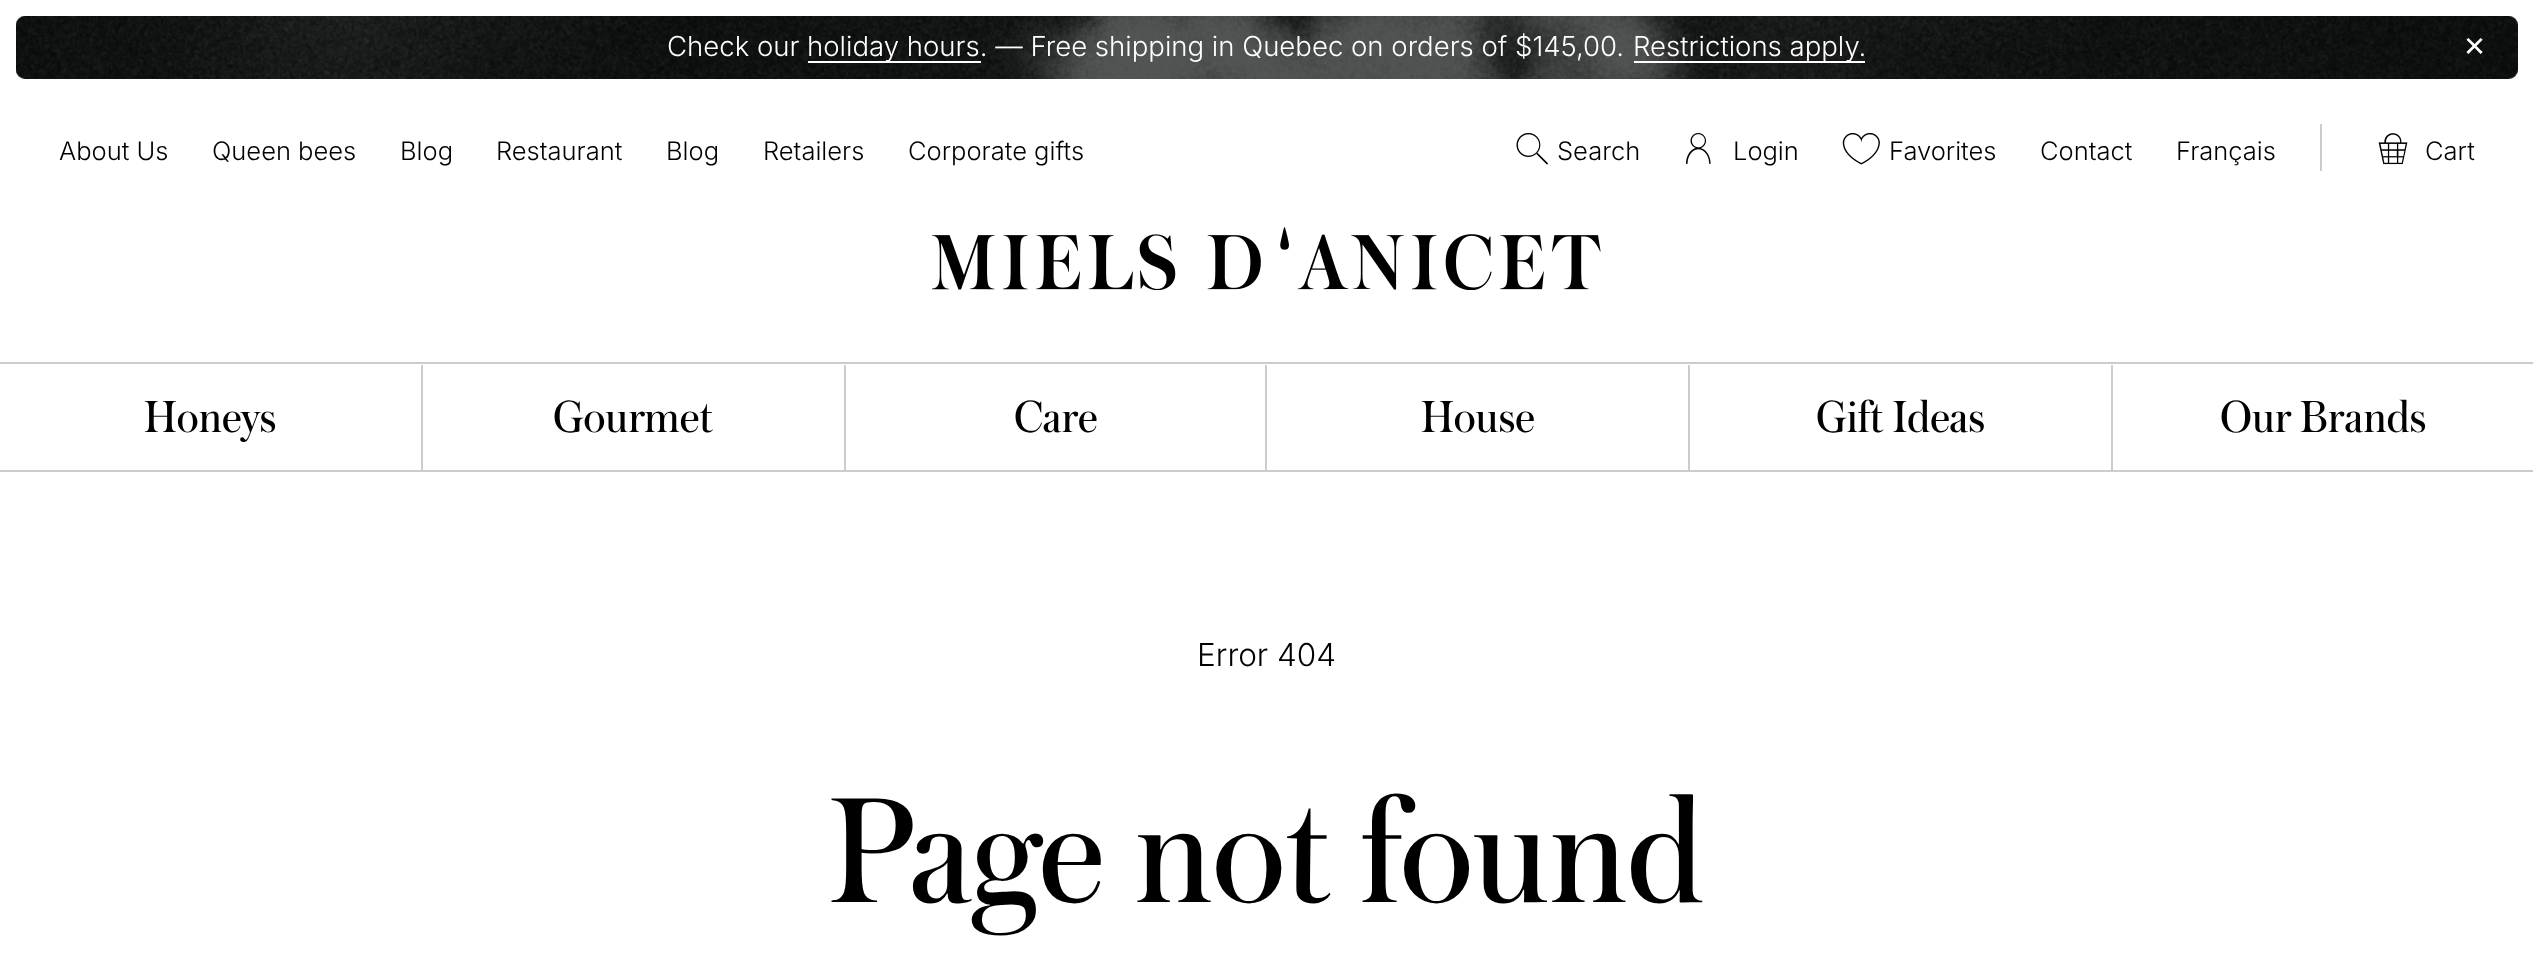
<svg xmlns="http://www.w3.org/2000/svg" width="2533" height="967">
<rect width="100%" height="100%" fill="#fff"/>
<image x="16" y="16" width="2502" height="63" href="media/1.png"/>
<rect x="16" y="16" width="2502" height="63" rx="9" fill="#0a0b0bb3"/>
<text x="667" y="56" style="font-family:Inter;font-size:27.55px;font-weight:300;fill:#fff">Check our</text>
<rect x="808" y="61" width="173" height="2" fill="#fff"/>
<text x="807" y="56" style="font-family:Inter;font-size:27.55px;font-weight:300;fill:#fff">holiday hours. — Free shipping in Quebec on orders of $145,00.</text>
<rect x="1634" y="61" width="231" height="2" fill="#fff"/>
<text x="1633" y="56" style="font-family:Inter;font-size:27.55px;font-weight:300;fill:#fff">Restrictions apply.</text>
<text x="2463" y="56" style="font-family:DejaVu Sans;font-size:27.55px;fill:#fff">✕</text>
<text x="59" y="160" style="font-family:Inter;font-size:25.5px;font-weight:300;fill:#000">About Us</text>
<text x="212" y="160" style="font-family:Inter;font-size:25.5px;font-weight:300;fill:#000">Queen bees</text>
<text x="400" y="160" style="font-family:Inter;font-size:25.5px;font-weight:300;fill:#000">Blog</text>
<text x="496" y="160" style="font-family:Inter;font-size:25.5px;font-weight:300;fill:#000">Restaurant</text>
<text x="666" y="160" style="font-family:Inter;font-size:25.5px;font-weight:300;fill:#000">Blog</text>
<text x="763" y="160" style="font-family:Inter;font-size:25.5px;font-weight:300;fill:#000">Retailers</text>
<text x="908" y="160" style="font-family:Inter;font-size:25.5px;font-weight:300;fill:#000">Corporate gifts</text>
<image x="1516" y="133" width="33" height="32" href="media/2.png"/>
<text x="1557" y="160" style="font-family:Inter;font-size:25.5px;font-weight:300;fill:#000">Search</text>
<image x="1686" y="133" width="25" height="31" href="media/3.png"/>
<text x="1733" y="160" style="font-family:Inter;font-size:25.5px;font-weight:300;fill:#000">Login</text>
<image x="1842" y="133" width="38" height="32" href="media/4.png"/>
<text x="1889" y="160" style="font-family:Inter;font-size:25.5px;font-weight:300;fill:#000">Favorites</text>
<text x="2040" y="160" style="font-family:Inter;font-size:25.5px;font-weight:300;fill:#000">Contact</text>
<text x="2176" y="160" style="font-family:Inter;font-size:25.5px;font-weight:300;fill:#000">Français</text>
<rect x="2320" y="124" width="2" height="47" fill="#ccc"/>
<image x="2378" y="133" width="30" height="32" href="media/5.png"/>
<text x="2425" y="160" style="font-family:Inter;font-size:25.5px;font-weight:300;fill:#000">Cart</text>
<rect y="362" width="2533" height="2" fill="#ccc"/>
<rect y="470" width="2533" height="2" fill="#ccc"/>
<rect x="421" y="365" width="2" height="105" fill="#ccc"/>
<text x="144" y="432" style="font-family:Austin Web;font-size:47.25px;font-weight:300;fill:#000">Honeys</text>
<rect x="844" y="365" width="2" height="105" fill="#ccc"/>
<text x="553" y="432" style="font-family:Austin Web;font-size:47.25px;font-weight:300;fill:#000">Gourmet</text>
<rect x="1265" y="365" width="2" height="105" fill="#ccc"/>
<text x="1014" y="432" style="font-family:Austin Web;font-size:47.25px;font-weight:300;fill:#000">Care</text>
<rect x="1688" y="365" width="2" height="105" fill="#ccc"/>
<text x="1421" y="432" style="font-family:Austin Web;font-size:47.25px;font-weight:300;fill:#000">House</text>
<rect x="2111" y="365" width="2" height="105" fill="#ccc"/>
<text x="1816" y="432" style="font-family:Austin Web;font-size:47.25px;font-weight:300;fill:#000">Gift Ideas</text>
<text x="2220" y="432" style="font-family:Austin Web;font-size:47.25px;font-weight:300;fill:#000">Our Brands</text>
<image x="932" y="227" width="669" height="63" href="media/6.png"/>
<text x="1197" y="666" style="font-family:Inter;font-size:31.5px;font-weight:300;fill:#000">Error 404</text>
<text x="829" y="902" style="font-family:Austin Web;font-size:157.5px;font-weight:300;fill:#000">Page not found</text>
</svg>
